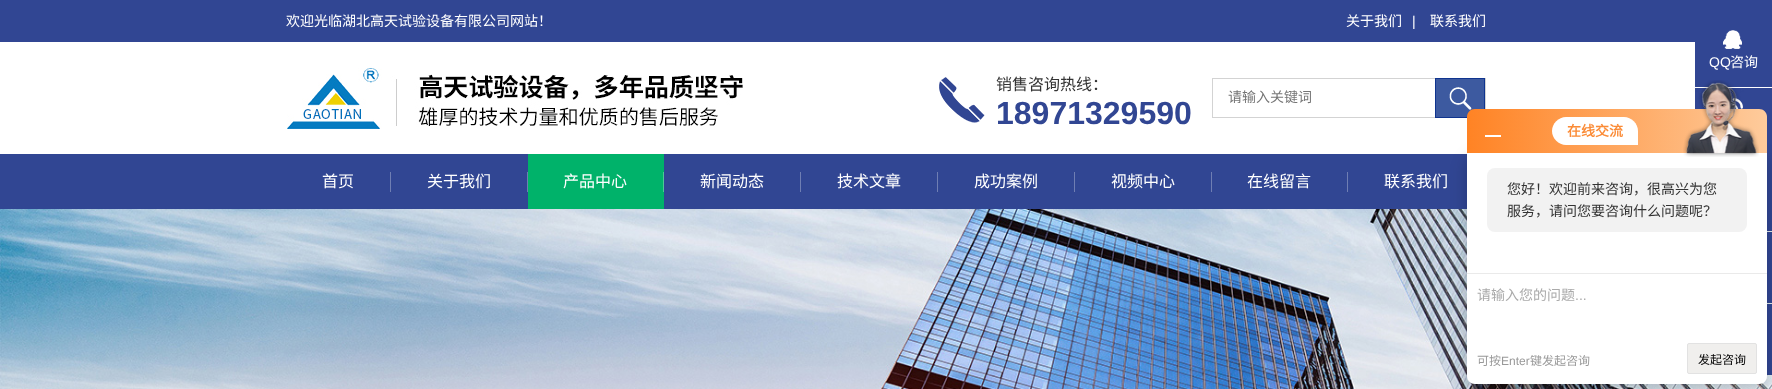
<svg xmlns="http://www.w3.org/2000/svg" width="1772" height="389">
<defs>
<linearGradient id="g1" gradientUnits="userSpaceOnUse" x1="1467" y1="131" x2="1767" y2="131"><stop offset="0" stop-color="#ff8324"/><stop offset="1" stop-color="#fecb9c"/></linearGradient>
</defs>
<rect width="100%" height="100%" fill="#fff"/>
<rect width="1772" height="42" fill="#314693"/>
<text x="286" y="26" style="font-family:Noto Sans CJK SC;font-size:14px;fill:#fff">欢迎光临湖北高天试验设备有限公司网站！</text>
<text x="1346" y="26" style="font-family:Noto Sans CJK SC;font-size:14px;fill:#fff">关于我们</text>
<text x="1412" y="26" style="font-family:Liberation Sans;font-size:14px;fill:#fff">|</text>
<text x="1430" y="26" style="font-family:Noto Sans CJK SC;font-size:14px;fill:#fff">联系我们</text>
<image x="287" y="68" width="456" height="61" href="media/1.png"/>
<image x="939" y="77" width="46" height="46" href="media/2.png"/>
<text x="996" y="90" style="font-family:Noto Sans CJK SC;font-size:16px;fill:#333">销售咨询热线：</text>
<text x="996" y="124" style="font-family:Liberation Sans;font-size:32px;font-weight:bold;fill:#314693">18971329590</text>
<rect x="1212.5" y="78.5" width="273" height="39" fill="none" stroke="#d3d3d3"/>
<text x="1228" y="102" style="font-family:Noto Sans CJK SC;font-size:14px;fill:#757575">请输入关键词</text>
<rect x="1436" y="79" width="48" height="38" fill="#3d5aa0"/>
<image x="1449" y="87" width="23" height="23" href="media/3.png"/>
<rect x="1435.5" y="78.5" width="49" height="39" fill="none" stroke="#0f348f"/>
<rect y="154" width="1772" height="55" fill="#314693"/>
<rect x="390" y="172" width="1" height="20" fill="#6f7eb3"/>
<text x="322" y="187" style="font-family:Noto Sans CJK SC;font-size:16px;fill:#fff">首页</text>
<rect x="527" y="172" width="1" height="20" fill="#6f7eb3"/>
<text x="427" y="187" style="font-family:Noto Sans CJK SC;font-size:16px;fill:#fff">关于我们</text>
<rect x="528" y="154" width="136" height="55" fill="#00b26a"/>
<rect x="663" y="172" width="1" height="20" fill="#4dc997"/>
<text x="563" y="187" style="font-family:Noto Sans CJK SC;font-size:16px;fill:#fff">产品中心</text>
<rect x="800" y="172" width="1" height="20" fill="#6f7eb3"/>
<text x="700" y="187" style="font-family:Noto Sans CJK SC;font-size:16px;fill:#fff">新闻动态</text>
<rect x="937" y="172" width="1" height="20" fill="#6f7eb3"/>
<text x="837" y="187" style="font-family:Noto Sans CJK SC;font-size:16px;fill:#fff">技术文章</text>
<rect x="1074" y="172" width="1" height="20" fill="#6f7eb3"/>
<text x="974" y="187" style="font-family:Noto Sans CJK SC;font-size:16px;fill:#fff">成功案例</text>
<rect x="1211" y="172" width="1" height="20" fill="#6f7eb3"/>
<text x="1111" y="187" style="font-family:Noto Sans CJK SC;font-size:16px;fill:#fff">视频中心</text>
<rect x="1347" y="172" width="1" height="20" fill="#6f7eb3"/>
<text x="1247" y="187" style="font-family:Noto Sans CJK SC;font-size:16px;fill:#fff">在线留言</text>
<text x="1384" y="187" style="font-family:Noto Sans CJK SC;font-size:16px;fill:#fff">联系我们</text>
<rect x="1695" y="42" width="77" height="45" fill="#314693"/>
<image x="1723" y="30" width="19" height="19" href="media/4.png"/>
<text x="1709" y="67" style="font-family:Liberation Sans;font-size:14px;fill:#fff">QQ</text>
<text x="1730" y="67" style="font-family:Noto Sans CJK SC;font-size:14px;fill:#fff">咨询</text>
<rect x="1695" y="88" width="77" height="66" fill="#314693"/>
<image x="1732" y="98" width="11" height="11" href="media/5.png"/>
<image x="0" y="209" width="1772" height="180" href="media/7.png"/>
<rect x="1767" y="209" width="5" height="22" fill="#314693"/>
<rect x="1767" y="232" width="5" height="71" fill="#314693"/>
<rect x="1767" y="304" width="5" height="71" fill="#314693"/>
<rect x="1467" y="157" width="300" height="231" rx="8" fill="#00000033" filter="blur(8px)"/>
<path d="M1475 109h284c4.5 0 8 3.5 8 8v36h-300v-36c0-4.5 3.5-8 8-8z" fill="url(#g1)"/>
<rect x="1485" y="135" width="16" height="2" fill="#fff"/>
<path d="M1566 117h58c7.5 0 14 6.5 14 14v14h-72c-7.5 0-14-6.5-14-14c0-7.5 6.5-14 14-14z" fill="#fff"/>
<text x="1567" y="136" style="font-family:Noto Sans CJK SC;font-size:14px;font-weight:bold;fill:#fb8b36">在线交流</text>
<path d="M1467 153h300v223c0 4.5-3.5 8-8 8h-284c-4.5 0-8-3.5-8-8z" fill="#fff"/>
<image x="1683" y="80" width="76" height="77" href="media/6.png"/>
<rect x="1487" y="168" width="260" height="64" rx="8" fill="#f2f2f2"/>
<text x="1507" y="194" style="font-family:Noto Sans CJK SC;font-size:14px;fill:#333">您好！欢迎前来咨询，很高兴为您</text>
<text x="1507" y="216" style="font-family:Noto Sans CJK SC;font-size:14px;fill:#333">服务，请问您要咨询什么问题呢？</text>
<rect x="1467" y="273" width="300" height="1" fill="#eaeaea"/>
<text x="1477" y="300" style="font-family:Noto Sans CJK SC;font-size:14px;fill:#aaa">请输入您的问题</text>
<text x="1575" y="300" style="font-family:Liberation Sans;font-size:14px;fill:#aaa">...</text>
<text x="1477" y="365" style="font-family:Noto Sans CJK SC;font-size:12px;fill:#999">可按</text>
<text x="1501" y="365" style="font-family:Liberation Sans;font-size:12px;fill:#999">Enter</text>
<text x="1530" y="365" style="font-family:Noto Sans CJK SC;font-size:12px;fill:#999">键发起咨询</text>
<rect x="1687.5" y="343.5" width="69" height="30" rx="1.5" fill="#f0efed" stroke="#e2e2e2"/>
<text x="1698" y="364" style="font-family:Noto Sans CJK SC;font-size:12px;fill:#000">发起咨询</text>
</svg>
